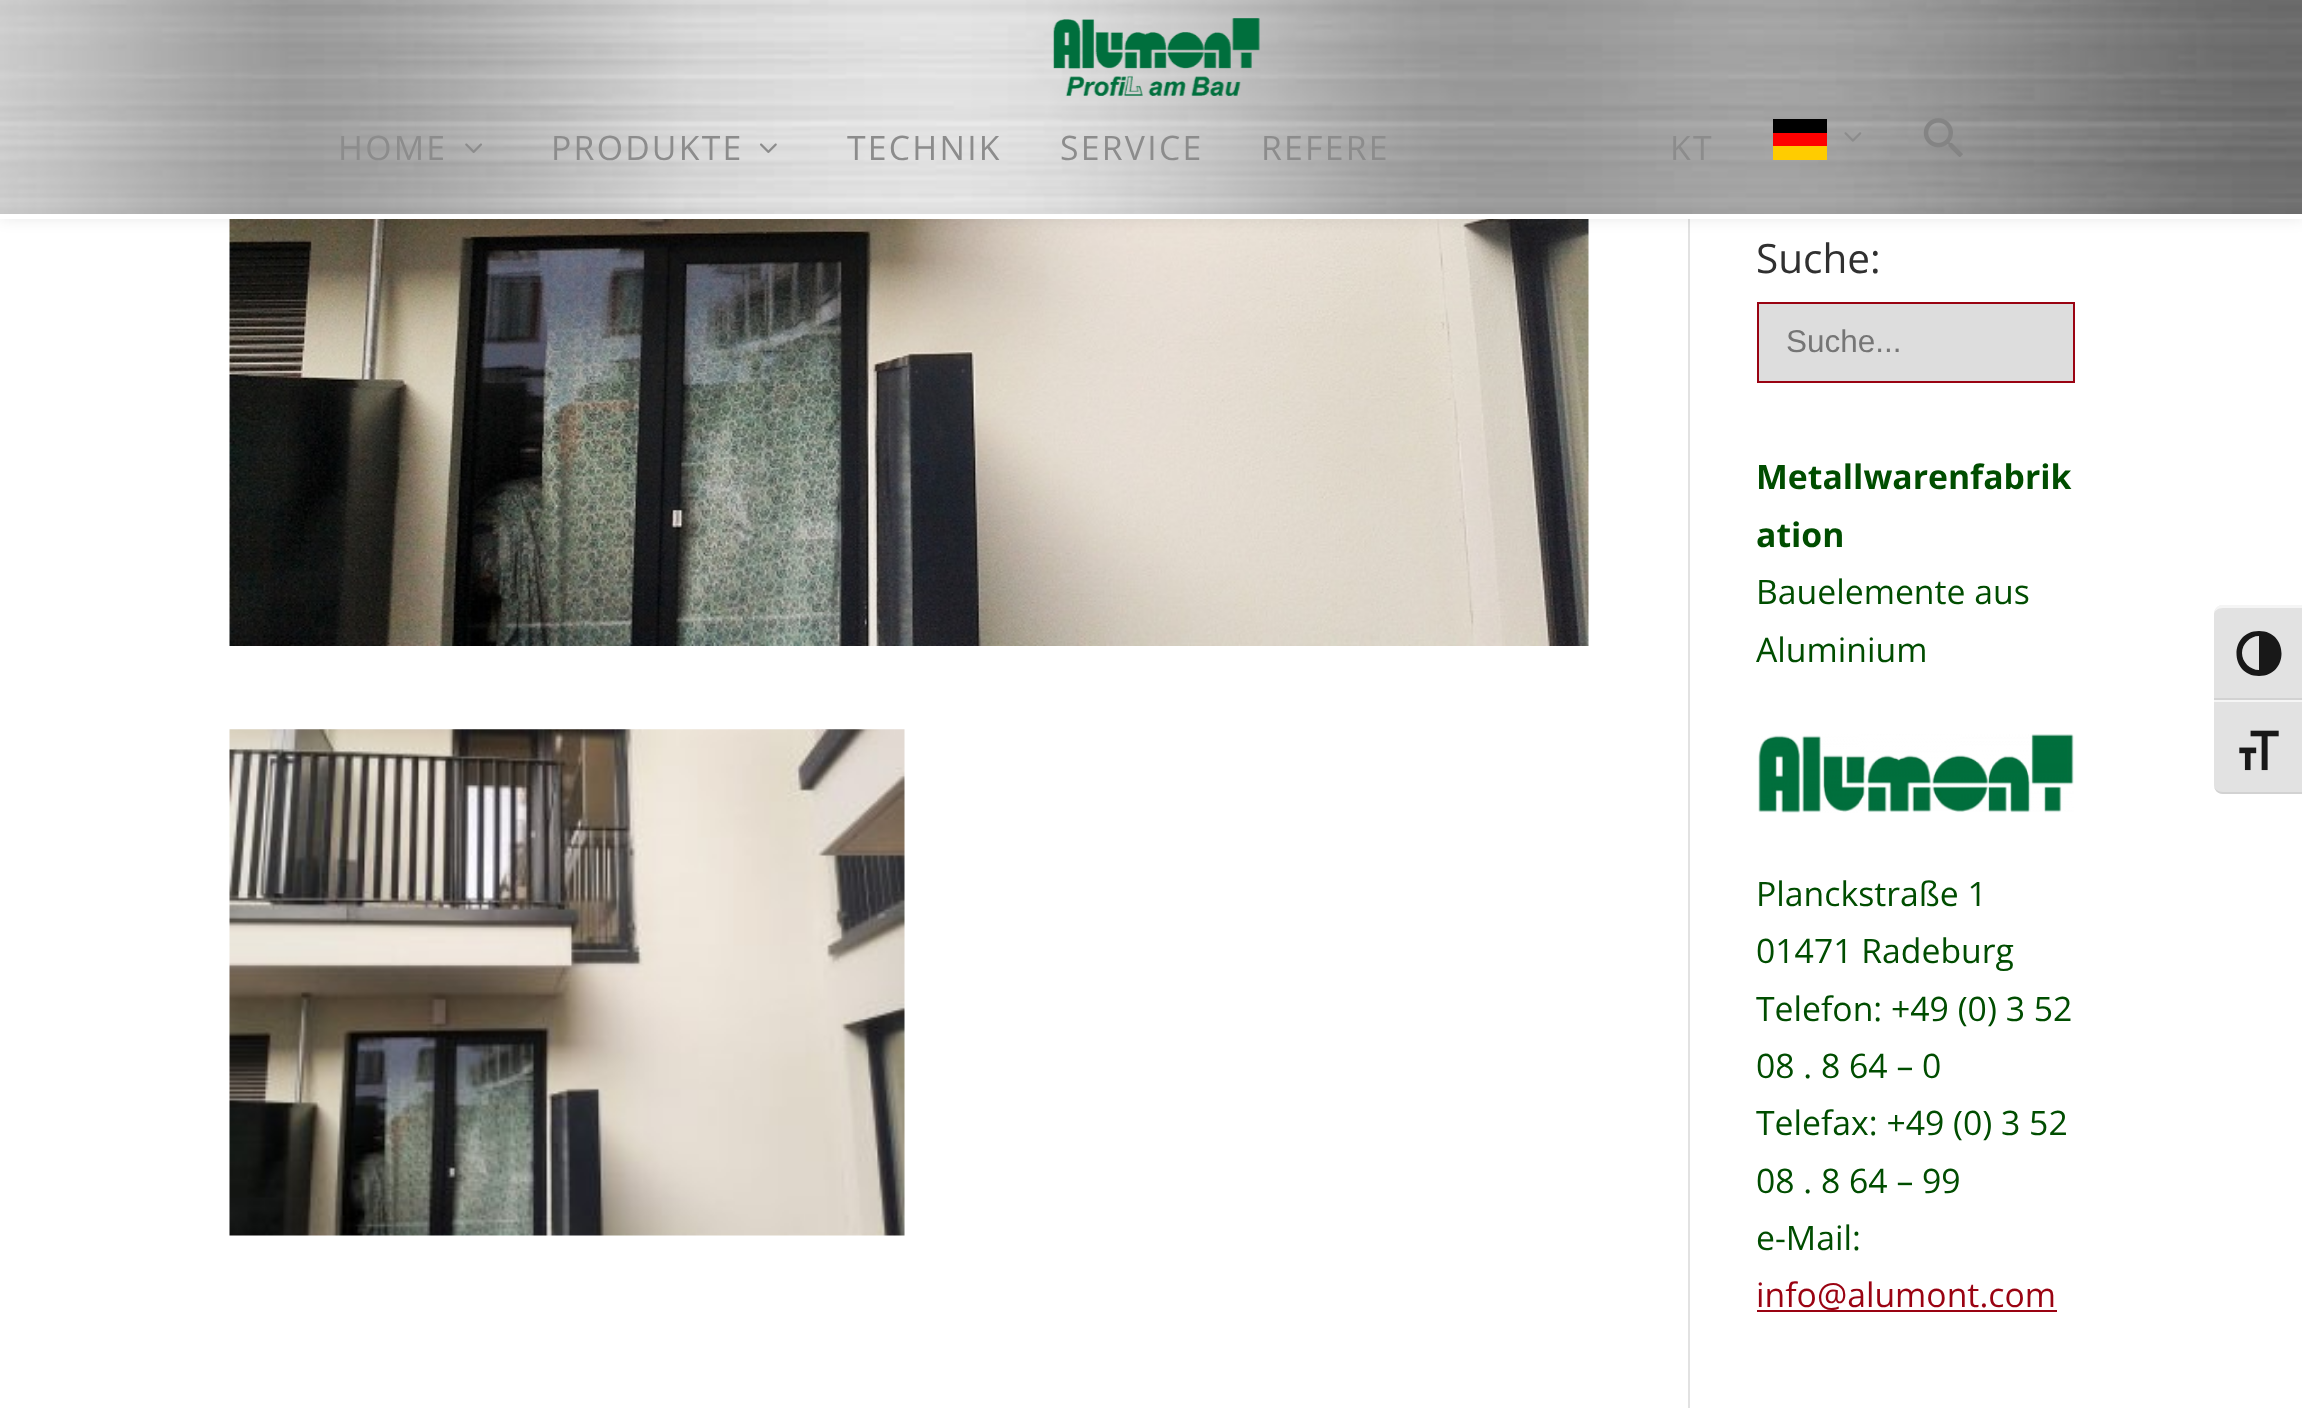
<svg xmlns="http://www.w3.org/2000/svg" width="2302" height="1408">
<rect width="100%" height="100%" fill="#fff"/>
<rect x="1688" y="219" width="2" height="1189" fill="#e2e2e2"/>
<image x="229" y="219" width="1360" height="427" href="media/7.png"/>
<rect width="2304" height="218" fill="#0000001a" filter="blur(8px)"/>
<image x="0" y="0" width="2302" height="214" href="media/1.png"/>
<rect y="214" width="2302" height="5" fill="#fff"/>
<image x="1053" y="18" width="207" height="78" href="media/2.png"/>
<text x="338" y="160" style="font-family:Open Sans;font-size:33.75px;letter-spacing:2.25px;fill:#8c8c8c">HOME</text>
<image x="465" y="143" width="17" height="10" href="media/3.png"/>
<text x="551" y="160" style="font-family:Open Sans;font-size:33.75px;letter-spacing:2.25px;fill:#8c8c8c">PRODUKTE</text>
<image x="760" y="143" width="17" height="10" href="media/4.png"/>
<text x="847" y="160" style="font-family:Open Sans;font-size:33.75px;letter-spacing:2.25px;fill:#8c8c8c">TECHNIK</text>
<text x="1060" y="160" style="font-family:Open Sans;font-size:33.75px;letter-spacing:2.25px;fill:#8c8c8c">SERVICE</text>
<text x="1261" y="160" style="font-family:Open Sans;font-size:33.75px;letter-spacing:2.25px;fill:#8c8c8c">REFERE</text>
<text x="1670" y="160" style="font-family:Open Sans;font-size:33.75px;letter-spacing:2.25px;fill:#8c8c8c">KT</text>
<rect x="1773" y="119" width="54" height="14" fill="#000"/>
<rect x="1773" y="133" width="54" height="13" fill="#f00"/>
<image x="1844" y="132" width="18" height="10" href="media/5.png"/>
<rect x="1773" y="146" width="54" height="14" fill="#fc0"/>
<image x="1923" y="118" width="40" height="39" href="media/6.png"/>
<image x="229" y="729" width="676" height="507" href="media/8.png"/>
<text x="1756" y="273" style="font-family:Open Sans;font-size:40.5px;fill:#303030">Suche:</text>
<rect x="1758" y="303" width="316" height="79" fill="#ddd" stroke="#9a0312" stroke-width="2"/>
<text x="1786" y="352" style="font-family:Liberation Sans;font-size:31.5px;fill:#757575">Suche...</text>
<text x="1756" y="489" style="font-family:Open Sans;font-size:33.75px;font-weight:bold;fill:#004d00">Metallwarenfabrik</text>
<text x="1756" y="547" style="font-family:Open Sans;font-size:33.75px;font-weight:bold;fill:#004d00">ation</text>
<text x="1756" y="604" style="font-family:Open Sans;font-size:33.75px;fill:#004d00">Bauelemente aus</text>
<text x="1756" y="662" style="font-family:Open Sans;font-size:33.75px;fill:#004d00">Aluminium</text>
<image x="1758" y="734" width="316" height="79" href="media/9.png"/>
<text x="1756" y="906" style="font-family:Open Sans;font-size:33.75px;fill:#004d00">Planckstraße 1</text>
<text x="1756" y="963" style="font-family:Open Sans;font-size:33.75px;fill:#004d00">01471 Radeburg</text>
<text x="1756" y="1021" style="font-family:Open Sans;font-size:33.75px;fill:#004d00">Telefon: +49 (0) 3 52</text>
<text x="1756" y="1078" style="font-family:Open Sans;font-size:33.75px;fill:#004d00">08 . 8 64 – 0</text>
<text x="1756" y="1135" style="font-family:Open Sans;font-size:33.75px;fill:#004d00">Telefax: +49 (0) 3 52</text>
<text x="1756" y="1193" style="font-family:Open Sans;font-size:33.75px;fill:#004d00">08 . 8 64 – 99</text>
<text x="1756" y="1250" style="font-family:Open Sans;font-size:33.75px;fill:#004d00">e-Mail:</text>
<rect x="1757" y="1310" width="300" height="2" fill="#9a0312"/>
<text x="1756" y="1307" style="font-family:Open Sans;font-size:33.75px;fill:#9a0312">info@alumont.com</text>
<path d="M2223 605h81v95h-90v-86c0-5 4-9 9-9z" fill="#e2e2e2"/>
<path d="M2223 608c-5 0-9 3-9 6c0-4 3-8 7-9h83v3z" fill="#f5f5f5"/>
<rect x="2214" y="698" width="88" height="2" fill="#d2d2d2"/>
<path d="M2259 631c-30 0-30 45 0 45c30 0 30-45 0-45zm-17 22c0-9 8-17 17-17v34c-9 0-17-8-17-17z" fill="#181818"/>
<path d="M2214 700h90v94h-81c-5 0-9-4-9-9z" fill="#e2e2e2"/>
<rect x="2214" y="700" width="88" height="2" fill="#f5f5f5"/>
<path d="M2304 794v-2h-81c-5 0-9-3-9-7c0 5 4 9 9 9z" fill="#d2d2d2"/>
<image x="2239" y="730" width="40" height="41" href="media/10.png"/>
</svg>
